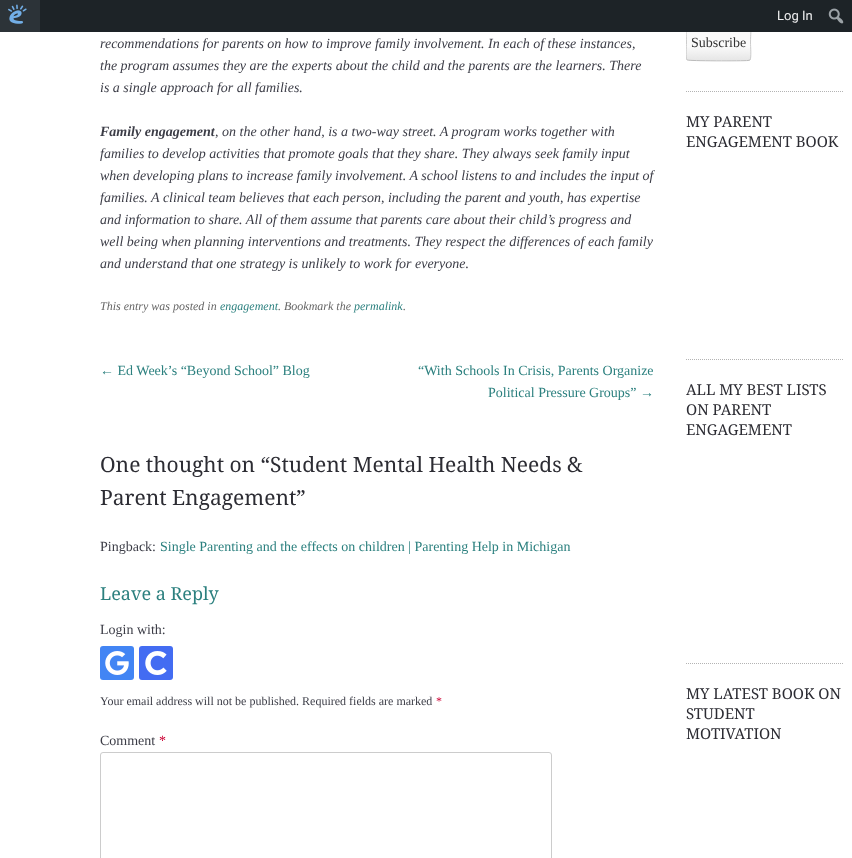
<svg xmlns="http://www.w3.org/2000/svg" width="852" height="858">
<defs>
<clipPath id="clip1"><rect x="686" y="25" width="65" height="36" rx="3"/></clipPath>
<linearGradient id="g1" gradientUnits="userSpaceOnUse" x1="719" y1="26" x2="719" y2="60"><stop offset="0.6" stop-color="#fafafa"/><stop offset="1" stop-color="#e6e6e6"/></linearGradient>
<linearGradient id="g2" gradientUnits="userSpaceOnUse" x1="719" y1="60" x2="719" y2="94"><stop offset="0.6" stop-color="#fafafa"/><stop offset="1" stop-color="#e6e6e6"/></linearGradient>
<clipPath id="clip2"><rect x="686" width="158" height="71"/></clipPath>
</defs>
<rect width="100%" height="100%" fill="#fff"/>
<g clip-path="url(#clip1)">
<rect x="686" y="32" width="65" height="28" fill="url(#g1)"/>
<rect x="686" y="60" width="65" height="1" fill="url(#g2)"/>
</g>
<path d="M750 60l-2 .5c-5 .5-59.5 .5-60.5-.5h-.5" fill="none" stroke="#bbb"/>
<g clip-path="url(#clip2)">
<path d="M687 60c-1.5-2-.5-14-.5-17c0-19-4-17.5 12.5-17.5h39c16.5 0 12.5-1.5 12.5 17.5c0 3 1 15-.5 17" fill="none" stroke="#ccc"/>
</g>
<rect x="40" width="812" height="32" fill="#1d2327"/>
<rect width="40" height="32" fill="#2c3338"/>
<image x="8" y="4" width="19" height="20" href="media/1.png"/>
<text x="777" y="20" style="font-family:Roboto;font-size:13px;fill:#f0f0f1">Log In</text>
<image x="828" y="8" width="16" height="16" href="media/2.png"/>
<text x="100" y="48" style="font-family:Liberation Serif;font-size:14px;font-style:italic;fill:#3c3d47">recommendations for parents on how to improve family involvement. In each of these instances,</text>
<text x="100" y="70" style="font-family:Liberation Serif;font-size:14px;font-style:italic;fill:#3c3d47">the program assumes they are the experts about the child and the parents are the learners. There</text>
<text x="100" y="92" style="font-family:Liberation Serif;font-size:14px;font-style:italic;fill:#3c3d47">is a single approach for all families.</text>
<text x="100" y="136" style="font-family:Liberation Serif;font-size:14px;font-weight:bold;font-style:italic;fill:#3c3d47">Family engagement</text>
<text x="215" y="136" style="font-family:Liberation Serif;font-size:14px;font-style:italic;fill:#3c3d47">, on the other hand, is a two-way street. A program works together with</text>
<text x="100" y="158" style="font-family:Liberation Serif;font-size:14px;font-style:italic;fill:#3c3d47">families to develop activities that promote goals that they share. They always seek family input</text>
<text x="100" y="180" style="font-family:Liberation Serif;font-size:14px;font-style:italic;fill:#3c3d47">when developing plans to increase family involvement. A school listens to and includes the input of</text>
<text x="100" y="202" style="font-family:Liberation Serif;font-size:14px;font-style:italic;fill:#3c3d47">families. A clinical team believes that each person, including the parent and youth, has expertise</text>
<text x="100" y="224" style="font-family:Liberation Serif;font-size:14px;font-style:italic;fill:#3c3d47">and information to share. All of them assume that parents care about their child’s progress and</text>
<text x="100" y="246" style="font-family:Liberation Serif;font-size:14px;font-style:italic;fill:#3c3d47">well being when planning interventions and treatments. They respect the differences of each family</text>
<text x="100" y="268" style="font-family:Liberation Serif;font-size:14px;font-style:italic;fill:#3c3d47">and understand that one strategy is unlikely to work for everyone.</text>
<text x="100" y="310" style="font-family:Liberation Serif;font-size:12px;font-style:italic;fill:#666">This entry was posted in</text>
<text x="220" y="310" style="font-family:Liberation Serif;font-size:12px;font-style:italic;fill:#2c807f">engagement</text>
<text x="278" y="310" style="font-family:Liberation Serif;font-size:12px;font-style:italic;fill:#666">. Bookmark the</text>
<text x="354" y="310" style="font-family:Liberation Serif;font-size:12px;font-style:italic;fill:#2c807f">permalink</text>
<text x="403" y="310" style="font-family:Liberation Serif;font-size:12px;font-style:italic;fill:#666">.</text>
<text x="100" y="375" style="font-family:Liberation Serif;font-size:14px;fill:#2c807f">← Ed Week’s “Beyond School” Blog</text>
<text x="418" y="375" style="font-family:Liberation Serif;font-size:14px;fill:#2c807f">“With Schools In Crisis, Parents Organize</text>
<text x="488" y="397" style="font-family:Liberation Serif;font-size:14px;fill:#2c807f">Political Pressure Groups” →</text>
<text x="100" y="472" style="font-family:Droid Serif;font-size:21px;fill:#2c2c33">One thought on “Student Mental Health Needs &amp;</text>
<text x="100" y="505" style="font-family:Droid Serif;font-size:21px;fill:#2c2c33">Parent Engagement”</text>
<text x="100" y="551" style="font-family:Liberation Serif;font-size:14px;fill:#3c3d47">Pingback:</text>
<text x="160" y="551" style="font-family:Liberation Serif;font-size:14px;fill:#2c807f">Single Parenting and the effects on children | Parenting Help in Michigan</text>
<text x="100" y="600" style="font-family:Droid Serif;font-size:18px;fill:#2c807f">Leave a Reply</text>
<text x="100" y="634" style="font-family:Liberation Serif;font-size:14px;fill:#3c3d47">Login with:</text>
<rect x="100" y="646" width="34" height="34" rx="3" fill="#4285f4"/>
<image x="105" y="651" width="24" height="24" href="media/3.png"/>
<rect x="139" y="646" width="34" height="34" rx="3" fill="#436cf2"/>
<image x="145" y="651" width="22" height="24" href="media/4.png"/>
<text x="100" y="705" style="font-family:Liberation Serif;font-size:12px;fill:#3c3d47">Your email address will not be published. Required fields are marked</text>
<text x="436" y="705" style="font-family:Liberation Serif;font-size:12px;fill:#c03">*</text>
<text x="100" y="745" style="font-family:Liberation Serif;font-size:14px;fill:#3c3d47">Comment</text>
<text x="159" y="745" style="font-family:Liberation Serif;font-size:14px;fill:#c03">*</text>
<rect x="100.5" y="752.5" width="451" height="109" rx="2.5" fill="none" stroke="#ccc"/>
<text x="691" y="47" style="font-family:Liberation Serif;font-size:14px;fill:#323232">Subscribe</text>
<path d="M686 91.5h158" fill="none" stroke="#b3b3b3" stroke-dasharray="1 1"/>
<text x="686" y="127" style="font-family:Droid Serif;font-size:15px;fill:#2c2c33">MY PARENT</text>
<text x="686" y="147" style="font-family:Droid Serif;font-size:15px;fill:#2c2c33">ENGAGEMENT BOOK</text>
<path d="M686 359.5h158" fill="none" stroke="#b3b3b3" stroke-dasharray="1 1"/>
<text x="686" y="395" style="font-family:Droid Serif;font-size:15px;fill:#2c2c33">ALL MY BEST LISTS</text>
<text x="686" y="415" style="font-family:Droid Serif;font-size:15px;fill:#2c2c33">ON PARENT</text>
<text x="686" y="435" style="font-family:Droid Serif;font-size:15px;fill:#2c2c33">ENGAGEMENT</text>
<path d="M686 663.5h158" fill="none" stroke="#b3b3b3" stroke-dasharray="1 1"/>
<text x="686" y="699" style="font-family:Droid Serif;font-size:15px;fill:#2c2c33">MY LATEST BOOK ON</text>
<text x="686" y="719" style="font-family:Droid Serif;font-size:15px;fill:#2c2c33">STUDENT</text>
<text x="686" y="739" style="font-family:Droid Serif;font-size:15px;fill:#2c2c33">MOTIVATION</text>
</svg>
